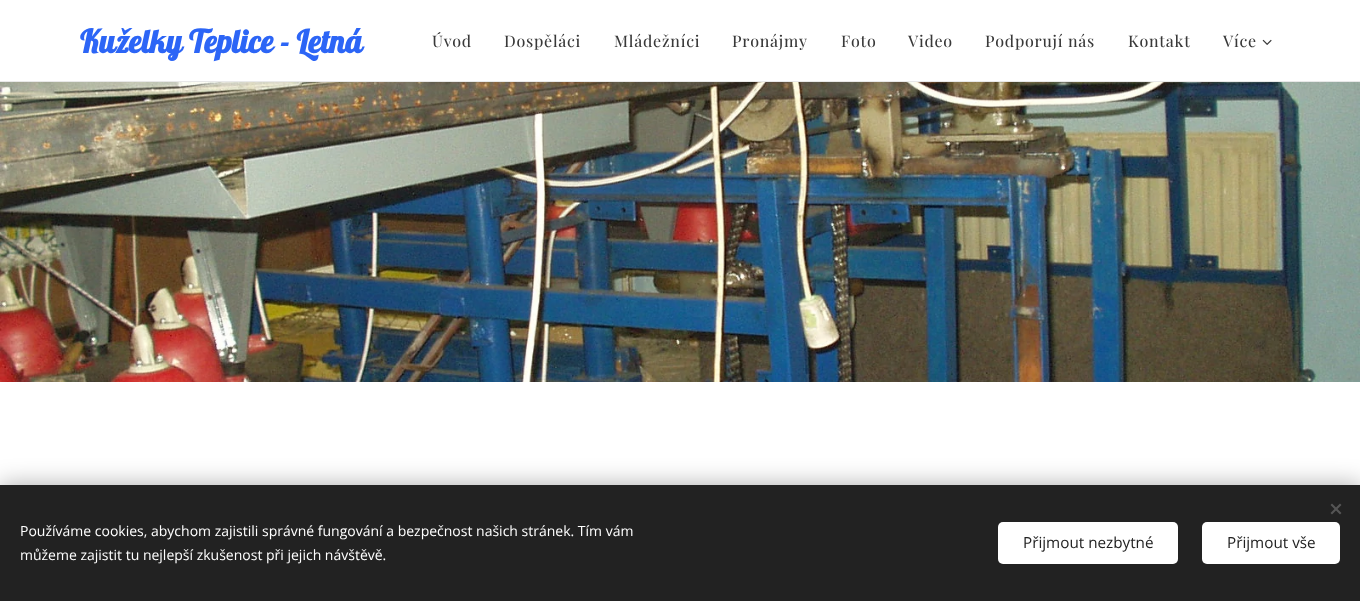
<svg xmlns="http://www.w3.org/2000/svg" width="1360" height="601">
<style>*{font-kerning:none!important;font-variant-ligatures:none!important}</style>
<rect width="100%" height="100%" fill="#fff"/>
<text x="80" y="53" style="font-family:Lobster;font-size:32px;font-weight:bold;fill:#2c65f6">Kuželky Teplice - Letná</text>
<text x="432" y="47" style="font-family:Playfair Display;font-size:16px;letter-spacing:0.75px;fill:#393939">Úvod</text>
<text x="504" y="47" style="font-family:Playfair Display;font-size:16px;letter-spacing:0.75px;fill:#393939">Dospěláci</text>
<text x="614" y="47" style="font-family:Playfair Display;font-size:16px;letter-spacing:0.75px;fill:#393939">Mládežníci</text>
<text x="732" y="47" style="font-family:Playfair Display;font-size:16px;letter-spacing:0.75px;fill:#393939">Pronájmy</text>
<text x="841" y="47" style="font-family:Playfair Display;font-size:16px;letter-spacing:0.75px;fill:#393939">Foto</text>
<text x="908" y="47" style="font-family:Playfair Display;font-size:16px;letter-spacing:0.75px;fill:#393939">Video</text>
<text x="985" y="47" style="font-family:Playfair Display;font-size:16px;letter-spacing:0.75px;fill:#393939">Podporují nás</text>
<text x="1128" y="47" style="font-family:Playfair Display;font-size:16px;letter-spacing:0.75px;fill:#393939">Kontakt</text>
<text x="1223" y="47" style="font-family:Playfair Display;font-size:16px;letter-spacing:0.75px;fill:#393939">Více</text>
<image x="1262" y="39" width="10" height="6" href="media/1.png"/>
<rect y="81" width="1360" height="1" fill="#e8e8e8"/>
<image x="0" y="82" width="1360" height="300" href="media/2.png"/>
<rect y="485" width="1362" height="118" fill="#00000054" filter="blur(12.5px)"/>
<rect y="485" width="1360" height="116" fill="#222"/>
<path d="M1330.5 513l9.5-9.5l1.5 1.5l-9.5 9.5z" fill="#555"/>
<path d="M1332 503.5l9.5 9.5l-1.5 1.5l-9.5-9.5z" fill="#555"/>
<text x="20" y="536" style="font-family:Open Sans;font-size:14px;fill:#fff">Používáme cookies, abychom zajistili správné fungování a bezpečnost našich stránek. Tím vám</text>
<text x="20" y="560" style="font-family:Open Sans;font-size:14px;fill:#fff">můžeme zajistit tu nejlepší zkušenost při jejich návštěvě.</text>
<rect x="998" y="522" width="180" height="42" rx="5" fill="#fff"/>
<text x="1023" y="548" style="font-family:Open Sans;font-size:15.25px;fill:#222">Přijmout nezbytné</text>
<rect x="1202" y="522" width="138" height="42" rx="5" fill="#fff"/>
<text x="1227" y="548" style="font-family:Open Sans;font-size:15.25px;fill:#222">Přijmout vše</text>
</svg>
